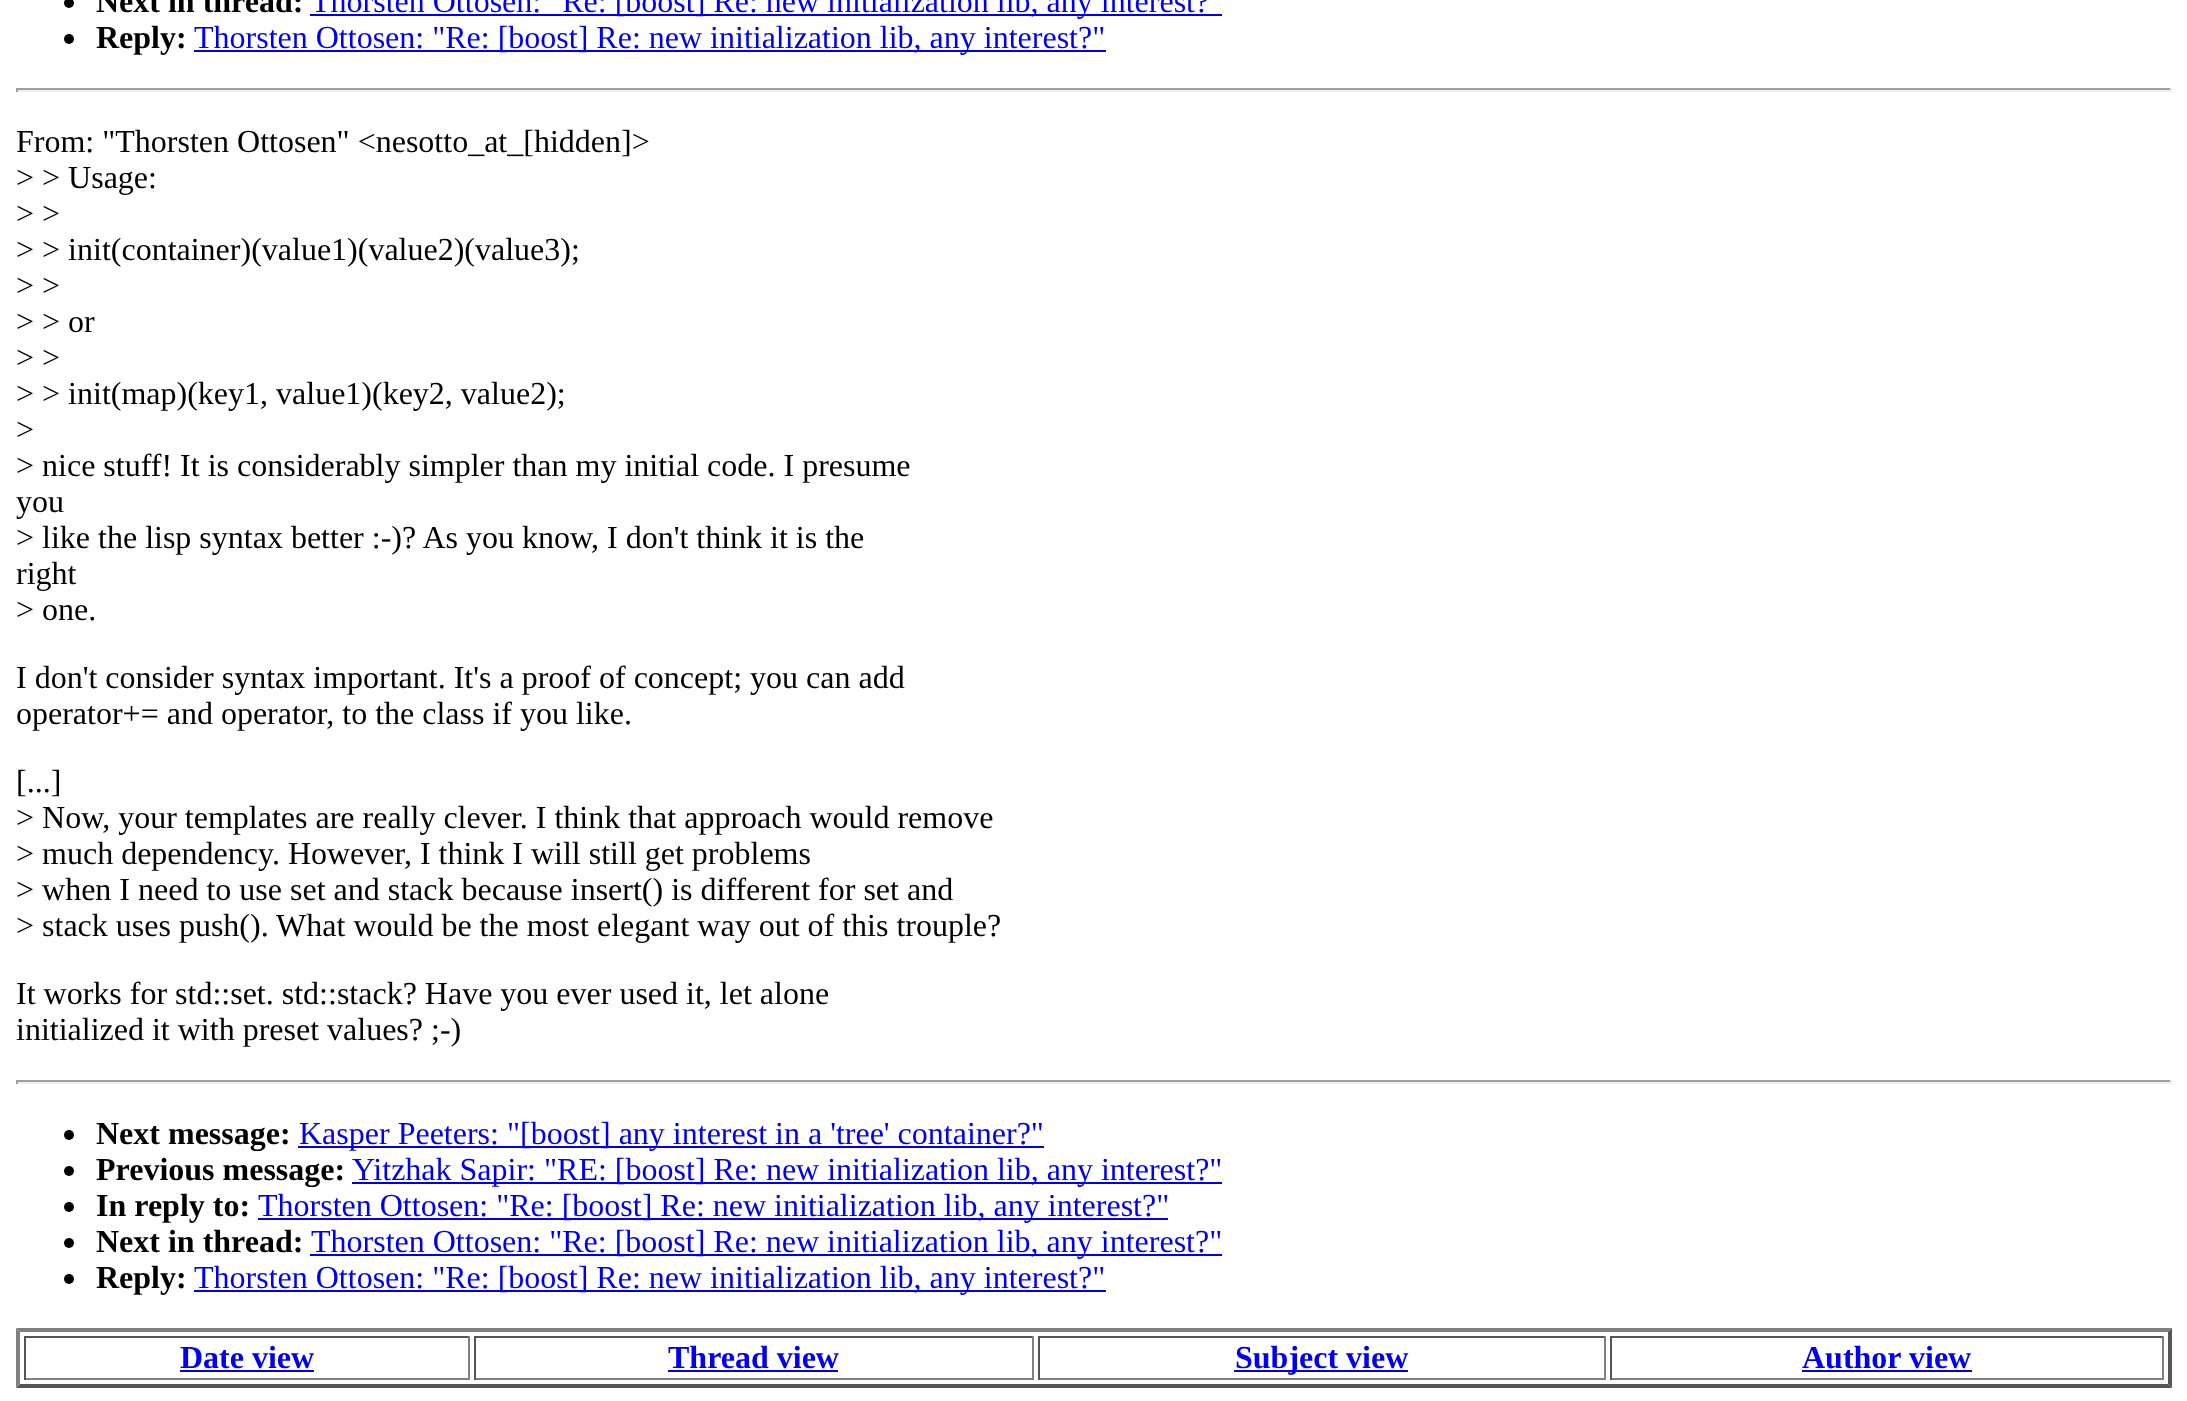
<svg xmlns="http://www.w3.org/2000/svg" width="2187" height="1401">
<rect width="100%" height="100%" fill="#fff"/>
<circle cx="69" cy="3" r="5" fill="#000"/>
<text x="96" y="12" style="font-family:Liberation Serif;font-size:32px;font-weight:bold;fill:#000">Next in thread:</text>
<rect x="310" y="14" width="912" height="2" fill="#00e"/>
<text x="311" y="12" style="font-family:Liberation Serif;font-size:32px;fill:#00e">Thorsten Ottosen: "Re: [boost] Re: new initialization lib, any interest?</text>
<circle cx="69" cy="39" r="5" fill="#000"/>
<text x="96" y="48" style="font-family:Liberation Serif;font-size:32px;font-weight:bold;fill:#000">Reply:</text>
<rect x="194" y="50" width="912" height="2" fill="#00e"/>
<text x="194" y="48" style="font-family:Liberation Serif;font-size:32px;fill:#00e">Thorsten Ottosen: "Re: [boost] Re: new initialization lib, any interest?"</text>
<rect x="16" y="88" width="2156" height="2" fill="#9f9f9f"/>
<rect x="2170" y="88" width="2" height="4" fill="#eee"/>
<rect x="16" y="90" width="2156" height="2" fill="#eee"/>
<rect x="16" y="88" width="2" height="4" fill="#9f9f9f"/>
<text x="16" y="152" style="font-family:Liberation Serif;font-size:32px;fill:#000">From: "Thorsten Ottosen" &lt;nesotto_at_[hidden]&gt;</text>
<text x="16" y="188" style="font-family:Liberation Serif;font-size:32px;fill:#000">&gt; &gt; Usage:</text>
<text x="16" y="224" style="font-family:Liberation Serif;font-size:32px;fill:#000">&gt; &gt;</text>
<text x="16" y="260" style="font-family:Liberation Serif;font-size:32px;fill:#000">&gt; &gt; init(container)(value1)(value2)(value3);</text>
<text x="16" y="296" style="font-family:Liberation Serif;font-size:32px;fill:#000">&gt; &gt;</text>
<text x="16" y="332" style="font-family:Liberation Serif;font-size:32px;fill:#000">&gt; &gt; or</text>
<text x="16" y="368" style="font-family:Liberation Serif;font-size:32px;fill:#000">&gt; &gt;</text>
<text x="16" y="404" style="font-family:Liberation Serif;font-size:32px;fill:#000">&gt; &gt; init(map)(key1, value1)(key2, value2);</text>
<text x="16" y="440" style="font-family:Liberation Serif;font-size:32px;fill:#000">&gt;</text>
<text x="16" y="476" style="font-family:Liberation Serif;font-size:32px;fill:#000">&gt; nice stuff! It is considerably simpler than my initial code. I presume</text>
<text x="16" y="512" style="font-family:Liberation Serif;font-size:32px;fill:#000">you</text>
<text x="16" y="548" style="font-family:Liberation Serif;font-size:32px;fill:#000">&gt; like the lisp syntax better :-)? As you know, I don't think it is the</text>
<text x="16" y="584" style="font-family:Liberation Serif;font-size:32px;fill:#000">right</text>
<text x="16" y="620" style="font-family:Liberation Serif;font-size:32px;fill:#000">&gt; one.</text>
<text x="16" y="688" style="font-family:Liberation Serif;font-size:32px;fill:#000">I don't consider syntax important. It's a proof of concept; you can add</text>
<text x="16" y="724" style="font-family:Liberation Serif;font-size:32px;fill:#000">operator+= and operator, to the class if you like.</text>
<text x="16" y="792" style="font-family:Liberation Serif;font-size:32px;fill:#000">[...]</text>
<text x="16" y="828" style="font-family:Liberation Serif;font-size:32px;fill:#000">&gt; Now, your templates are really clever. I think that approach would remove</text>
<text x="16" y="864" style="font-family:Liberation Serif;font-size:32px;fill:#000">&gt; much dependency. However, I think I will still get problems</text>
<text x="16" y="900" style="font-family:Liberation Serif;font-size:32px;fill:#000">&gt; when I need to use set and stack because insert() is different for set and</text>
<text x="16" y="936" style="font-family:Liberation Serif;font-size:32px;fill:#000">&gt; stack uses push(). What would be the most elegant way out of this trouple?</text>
<text x="16" y="1004" style="font-family:Liberation Serif;font-size:32px;fill:#000">It works for std::set. std::stack? Have you ever used it, let alone</text>
<text x="16" y="1040" style="font-family:Liberation Serif;font-size:32px;fill:#000">initialized it with preset values? ;-)</text>
<rect x="16" y="1080" width="2156" height="2" fill="#9f9f9f"/>
<rect x="2170" y="1080" width="2" height="4" fill="#eee"/>
<rect x="16" y="1082" width="2156" height="2" fill="#eee"/>
<rect x="16" y="1080" width="2" height="4" fill="#9f9f9f"/>
<circle cx="69" cy="1135" r="5" fill="#000"/>
<text x="96" y="1144" style="font-family:Liberation Serif;font-size:32px;font-weight:bold;fill:#000">Next message:</text>
<rect x="298" y="1146" width="746" height="2" fill="#00e"/>
<text x="299" y="1144" style="font-family:Liberation Serif;font-size:32px;fill:#00e">Kasper Peeters: "[boost] any interest in a 'tree' container?"</text>
<circle cx="69" cy="1171" r="5" fill="#000"/>
<text x="96" y="1180" style="font-family:Liberation Serif;font-size:32px;font-weight:bold;fill:#000">Previous message:</text>
<rect x="352" y="1182" width="870" height="2" fill="#00e"/>
<text x="352" y="1180" style="font-family:Liberation Serif;font-size:32px;fill:#00e">Yitzhak Sapir: "RE: [boost] Re: new initialization lib, any interest?"</text>
<circle cx="69" cy="1207" r="5" fill="#000"/>
<text x="96" y="1216" style="font-family:Liberation Serif;font-size:32px;font-weight:bold;fill:#000">In reply to:</text>
<rect x="258" y="1218" width="910" height="2" fill="#00e"/>
<text x="258" y="1216" style="font-family:Liberation Serif;font-size:32px;fill:#00e">Thorsten Ottosen: "Re: [boost] Re: new initialization lib, any interest?"</text>
<circle cx="69" cy="1243" r="5" fill="#000"/>
<text x="96" y="1252" style="font-family:Liberation Serif;font-size:32px;font-weight:bold;fill:#000">Next in thread:</text>
<rect x="310" y="1254" width="912" height="2" fill="#00e"/>
<text x="311" y="1252" style="font-family:Liberation Serif;font-size:32px;fill:#00e">Thorsten Ottosen: "Re: [boost] Re: new initialization lib, any interest?"</text>
<circle cx="69" cy="1279" r="5" fill="#000"/>
<text x="96" y="1288" style="font-family:Liberation Serif;font-size:32px;font-weight:bold;fill:#000">Reply:</text>
<rect x="194" y="1290" width="912" height="2" fill="#00e"/>
<text x="194" y="1288" style="font-family:Liberation Serif;font-size:32px;fill:#00e">Thorsten Ottosen: "Re: [boost] Re: new initialization lib, any interest?"</text>
<path d="M16 1328h2156l-4 4h-2148z" fill="#808080"/>
<path d="M2172 1328v60l-4-4v-52z" fill="#555"/>
<path d="M2172 1388h-2156l4-4h2148z" fill="#555"/>
<path d="M16 1388v-60l4 4v52z" fill="#808080"/>
<rect x="24" y="1336" width="446" height="2" fill="#555"/>
<rect x="468" y="1336" width="2" height="44" fill="#808080"/>
<rect x="24" y="1378" width="446" height="2" fill="#808080"/>
<rect x="24" y="1336" width="2" height="44" fill="#555"/>
<text x="180" y="1368" style="font-family:Liberation Serif;font-size:32px;font-weight:bold;fill:#00e">Date view</text>
<rect x="180" y="1370" width="134" height="2" fill="#00e"/>
<rect x="474" y="1336" width="560" height="2" fill="#555"/>
<rect x="1032" y="1336" width="2" height="44" fill="#808080"/>
<rect x="474" y="1378" width="560" height="2" fill="#808080"/>
<rect x="474" y="1336" width="2" height="44" fill="#555"/>
<text x="668" y="1368" style="font-family:Liberation Serif;font-size:32px;font-weight:bold;fill:#00e">Thread view</text>
<rect x="668" y="1370" width="170" height="2" fill="#00e"/>
<rect x="1038" y="1336" width="568" height="2" fill="#555"/>
<rect x="1604" y="1336" width="2" height="44" fill="#808080"/>
<rect x="1038" y="1378" width="568" height="2" fill="#808080"/>
<rect x="1038" y="1336" width="2" height="44" fill="#555"/>
<rect x="1234" y="1370" width="174" height="2" fill="#00e"/>
<text x="1235" y="1368" style="font-family:Liberation Serif;font-size:32px;font-weight:bold;fill:#00e">Subject view</text>
<rect x="1610" y="1336" width="554" height="2" fill="#555"/>
<rect x="2162" y="1336" width="2" height="44" fill="#808080"/>
<rect x="1610" y="1378" width="554" height="2" fill="#808080"/>
<rect x="1610" y="1336" width="2" height="44" fill="#555"/>
<text x="1802" y="1368" style="font-family:Liberation Serif;font-size:32px;font-weight:bold;fill:#00e">Author view</text>
<rect x="1802" y="1370" width="170" height="2" fill="#00e"/>
</svg>
